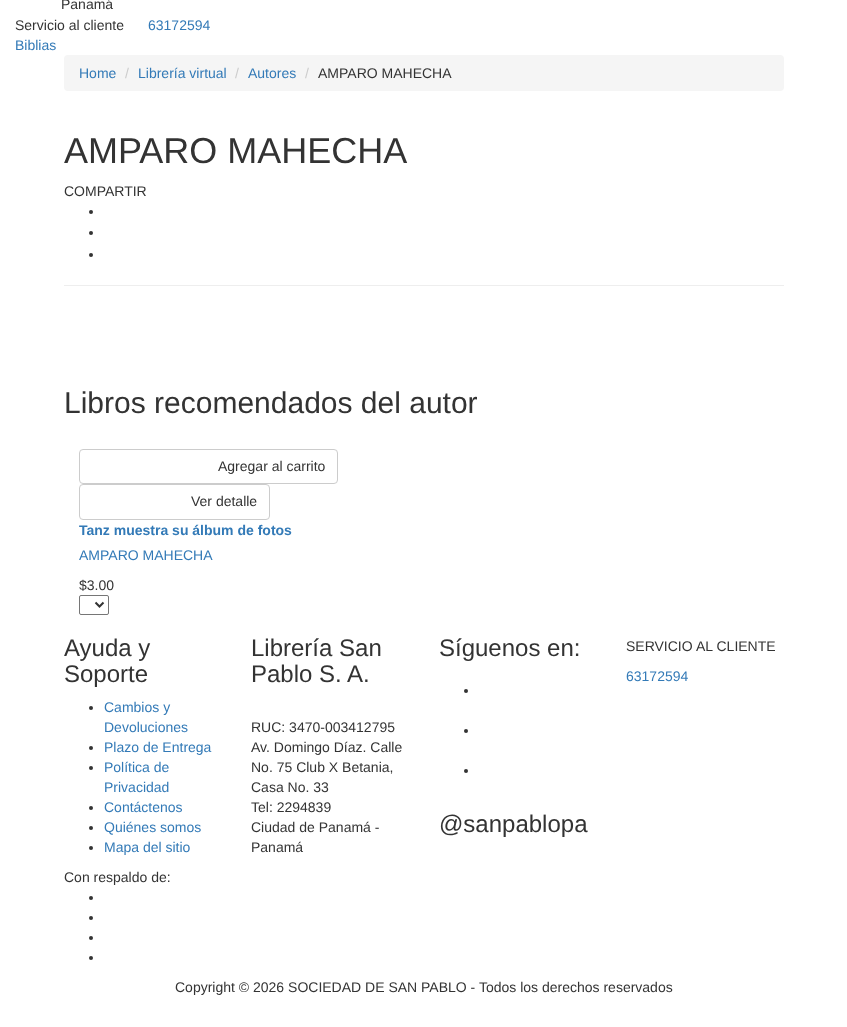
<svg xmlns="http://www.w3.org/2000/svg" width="847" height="1027">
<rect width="100%" height="100%" fill="#fff"/>
<text x="61" y="9" style="font-family:Liberation Sans;font-size:14px;fill:#333">Panamá</text>
<text x="15" y="30" style="font-family:Liberation Sans;font-size:14px;fill:#333">Servicio al cliente</text>
<text x="148" y="30" style="font-family:Liberation Sans;font-size:14px;fill:#337ab7">63172594</text>
<text x="15" y="50" style="font-family:Liberation Sans;font-size:14px;fill:#337ab7">Biblias</text>
<rect x="64" y="55" width="720" height="36" rx="4" fill="#f5f5f5"/>
<text x="79" y="78" style="font-family:Liberation Sans;font-size:14px;fill:#337ab7">Home</text>
<text x="125" y="78" style="font-family:Liberation Sans;font-size:14px;fill:#ccc">/</text>
<text x="138" y="78" style="font-family:Liberation Sans;font-size:14px;fill:#337ab7">Librería virtual</text>
<text x="235" y="78" style="font-family:Liberation Sans;font-size:14px;fill:#ccc">/</text>
<text x="248" y="78" style="font-family:Liberation Sans;font-size:14px;fill:#337ab7">Autores</text>
<text x="305" y="78" style="font-family:Liberation Sans;font-size:14px;fill:#ccc">/</text>
<text x="318" y="78" style="font-family:Liberation Sans;font-size:14px;fill:#333">AMPARO MAHECHA</text>
<text x="64" y="163" style="font-family:Liberation Sans;font-size:36px;fill:#333">AMPARO MAHECHA</text>
<text x="64" y="196" style="font-family:Liberation Sans;font-size:14px;fill:#333">COMPARTIR</text>
<circle cx="91" cy="212" r="2" fill="#333"/>
<circle cx="91" cy="233" r="2" fill="#333"/>
<circle cx="91" cy="255" r="2" fill="#333"/>
<rect x="64" y="285" width="720" height="1" fill="#eee"/>
<text x="64" y="413" style="font-family:Liberation Sans;font-size:30px;fill:#333">Libros recomendados del autor</text>
<rect x="79.5" y="449.5" width="258" height="34" rx="3.5" fill="none" stroke="#ccc"/>
<text x="218" y="471" style="font-family:Liberation Sans;font-size:14px;fill:#333">Agregar al carrito</text>
<rect x="79.5" y="484.5" width="190" height="35" rx="3.5" fill="none" stroke="#ccc"/>
<text x="191" y="506" style="font-family:Liberation Sans;font-size:14px;fill:#333">Ver detalle</text>
<text x="79" y="535" style="font-family:Liberation Sans;font-size:14px;font-weight:bold;fill:#337ab7">Tanz muestra su álbum de fotos</text>
<text x="79" y="560" style="font-family:Liberation Sans;font-size:14px;fill:#337ab7">AMPARO MAHECHA</text>
<text x="79" y="590" style="font-family:Liberation Sans;font-size:14px;fill:#333">$3.00</text>
<rect x="79.5" y="595.5" width="29" height="19" rx="1.5" fill="none" stroke="#767676"/>
<path d="M95.5 602.5l4 4l4-4" fill="none" stroke="#333" stroke-width="2"/>
<text x="64" y="656" style="font-family:Liberation Sans;font-size:24px;fill:#333">Ayuda y</text>
<text x="64" y="682" style="font-family:Liberation Sans;font-size:24px;fill:#333">Soporte</text>
<circle cx="91" cy="708" r="2" fill="#333"/>
<text x="104" y="712" style="font-family:Liberation Sans;font-size:14px;fill:#337ab7">Cambios y</text>
<text x="104" y="732" style="font-family:Liberation Sans;font-size:14px;fill:#337ab7">Devoluciones</text>
<circle cx="91" cy="748" r="2" fill="#333"/>
<text x="104" y="752" style="font-family:Liberation Sans;font-size:14px;fill:#337ab7">Plazo de Entrega</text>
<circle cx="91" cy="768" r="2" fill="#333"/>
<text x="104" y="772" style="font-family:Liberation Sans;font-size:14px;fill:#337ab7">Política de</text>
<text x="104" y="792" style="font-family:Liberation Sans;font-size:14px;fill:#337ab7">Privacidad</text>
<circle cx="91" cy="808" r="2" fill="#333"/>
<text x="104" y="812" style="font-family:Liberation Sans;font-size:14px;fill:#337ab7">Contáctenos</text>
<circle cx="91" cy="828" r="2" fill="#333"/>
<text x="104" y="832" style="font-family:Liberation Sans;font-size:14px;fill:#337ab7">Quiénes somos</text>
<circle cx="91" cy="848" r="2" fill="#333"/>
<text x="104" y="852" style="font-family:Liberation Sans;font-size:14px;fill:#337ab7">Mapa del sitio</text>
<text x="251" y="656" style="font-family:Liberation Sans;font-size:24px;fill:#333">Librería San</text>
<text x="251" y="682" style="font-family:Liberation Sans;font-size:24px;fill:#333">Pablo S. A.</text>
<text x="251" y="732" style="font-family:Liberation Sans;font-size:14px;fill:#333">RUC: 3470-003412795</text>
<text x="251" y="752" style="font-family:Liberation Sans;font-size:14px;fill:#333">Av. Domingo Díaz. Calle</text>
<text x="251" y="772" style="font-family:Liberation Sans;font-size:14px;fill:#333">No. 75 Club X Betania,</text>
<text x="251" y="792" style="font-family:Liberation Sans;font-size:14px;fill:#333">Casa No. 33</text>
<text x="251" y="812" style="font-family:Liberation Sans;font-size:14px;fill:#333">Tel: 2294839</text>
<text x="251" y="832" style="font-family:Liberation Sans;font-size:14px;fill:#333">Ciudad de Panamá -</text>
<text x="251" y="852" style="font-family:Liberation Sans;font-size:14px;fill:#333">Panamá</text>
<text x="439" y="656" style="font-family:Liberation Sans;font-size:24px;fill:#333">Síguenos en:</text>
<circle cx="466" cy="691" r="2" fill="#333"/>
<circle cx="466" cy="731" r="2" fill="#333"/>
<circle cx="466" cy="771" r="2" fill="#333"/>
<text x="439" y="832" style="font-family:Liberation Sans;font-size:24px;fill:#333">@sanpablopa</text>
<text x="626" y="651" style="font-family:Liberation Sans;font-size:14px;fill:#333">SERVICIO</text>
<text x="696" y="651" style="font-family:Liberation Sans;font-size:14px;fill:#333">AL CLIENTE</text>
<text x="626" y="681" style="font-family:Liberation Sans;font-size:14px;fill:#337ab7">63172594</text>
<text x="64" y="882" style="font-family:Liberation Sans;font-size:14px;fill:#333">Con respaldo de:</text>
<circle cx="91" cy="898" r="2" fill="#333"/>
<circle cx="91" cy="918" r="2" fill="#333"/>
<circle cx="91" cy="938" r="2" fill="#333"/>
<circle cx="91" cy="958" r="2" fill="#333"/>
<text x="175" y="992" style="font-family:Liberation Sans;font-size:14px;fill:#333">Copyright © 2026 SOCIEDAD DE SAN PABLO - Todos los derechos reservados</text>
</svg>
